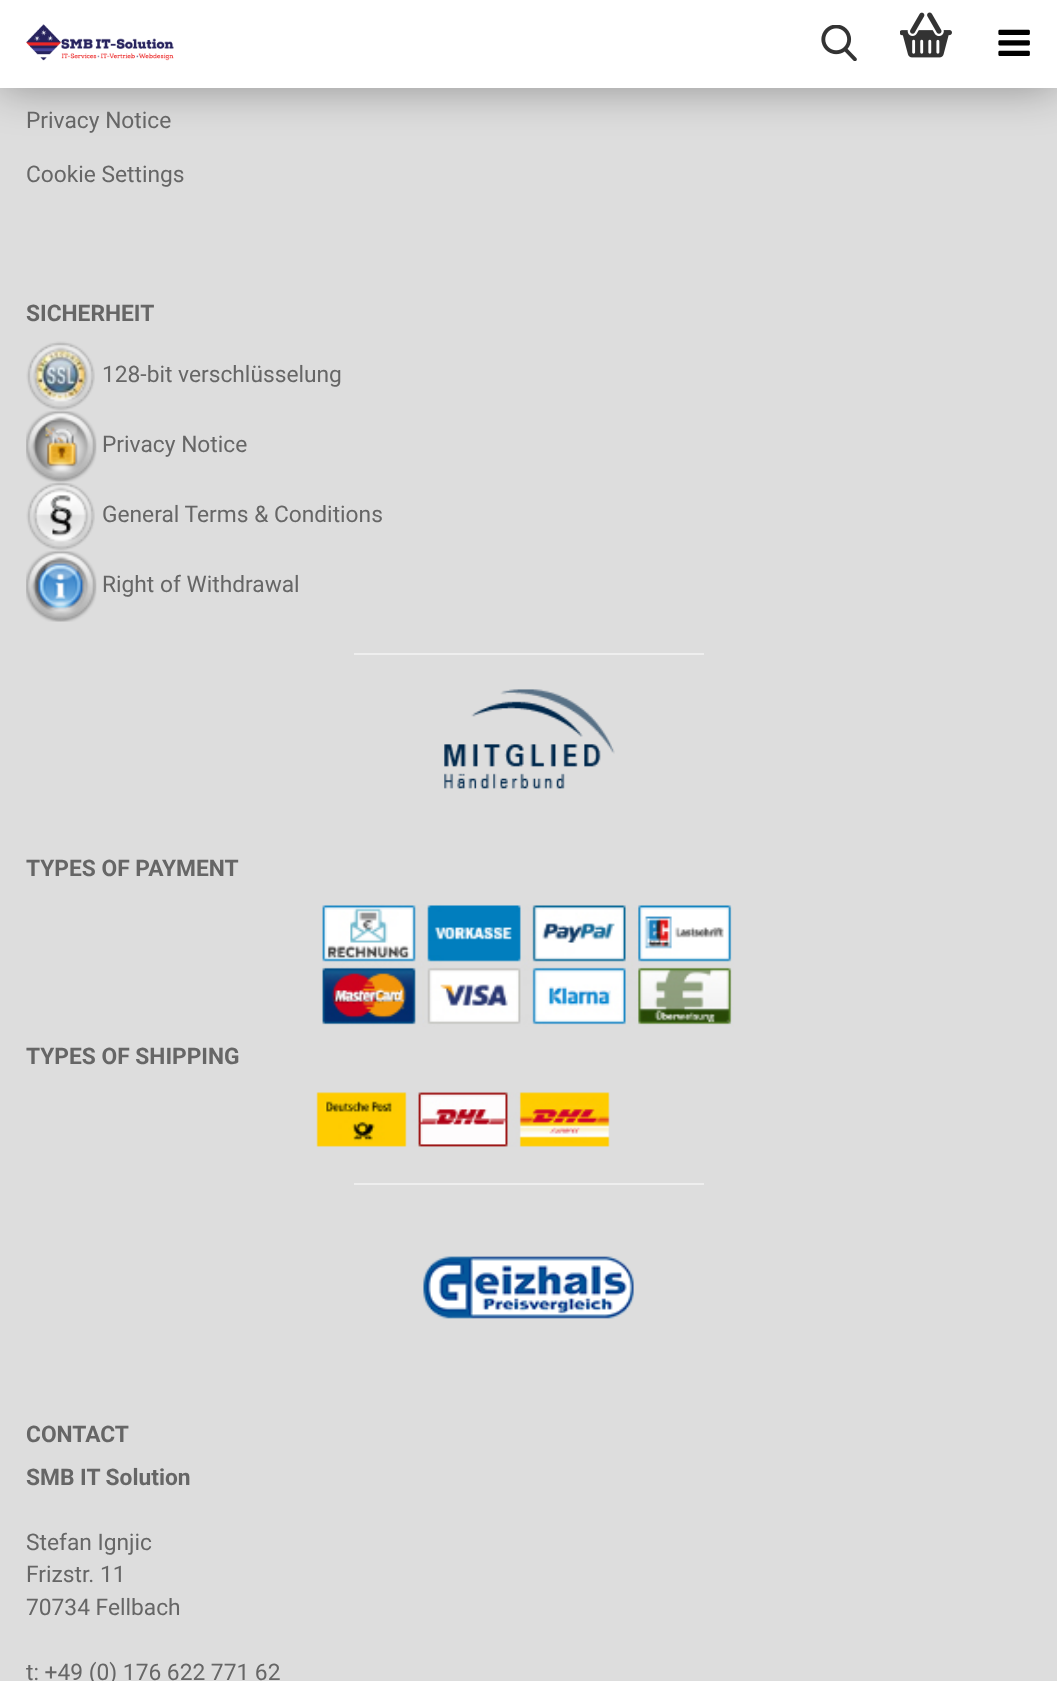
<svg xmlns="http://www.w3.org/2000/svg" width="1057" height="1681">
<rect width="100%" height="100%" fill="#ddd"/>
<rect width="1057" height="88" fill="#00000059" filter="blur(22px)"/>
<rect width="1057" height="88" fill="#fff"/>
<image x="26" y="24" width="148" height="37" href="media/1.png"/>
<image x="821" y="25" width="36" height="36" href="media/2.png"/>
<image x="900" y="12" width="52" height="46" href="media/3.png"/>
<image x="998" y="29" width="32" height="27" href="media/4.png"/>
<text x="26" y="128" style="font-family:Roboto;font-size:22.75px;fill:#666">Privacy Notice</text>
<text x="26" y="182" style="font-family:Roboto;font-size:22.75px;fill:#666">Cookie Settings</text>
<text x="26" y="321" style="font-family:Roboto;font-size:22.75px;font-weight:bold;fill:#666">SICHERHEIT</text>
<image x="26" y="341" width="69" height="71" href="media/5.png"/>
<text x="102" y="382" style="font-family:Roboto;font-size:22.75px;fill:#666">128-bit verschlüsselung</text>
<image x="26" y="411" width="71" height="71" href="media/6.png"/>
<text x="102" y="452" style="font-family:Roboto;font-size:22.75px;fill:#666">Privacy Notice</text>
<image x="26" y="482" width="69" height="70" href="media/7.png"/>
<text x="102" y="522" style="font-family:Roboto;font-size:22.75px;fill:#666">General Terms &amp; Conditions</text>
<image x="26" y="551" width="71" height="71" href="media/8.png"/>
<text x="102" y="592" style="font-family:Roboto;font-size:22.75px;fill:#666">Right of Withdrawal</text>
<rect x="354" y="653" width="350" height="2" fill="#eee"/>
<image x="444" y="689" width="171" height="100" href="media/9.png"/>
<text x="26" y="876" style="font-family:Roboto;font-size:22.75px;font-weight:bold;fill:#666">TYPES OF PAYMENT</text>
<image x="322" y="904" width="412" height="123" href="media/10.png"/>
<text x="26" y="1064" style="font-family:Roboto;font-size:22.75px;font-weight:bold;fill:#666">TYPES OF SHIPPING</text>
<image x="316" y="1092" width="294" height="55" href="media/11.png"/>
<rect x="354" y="1183" width="350" height="2" fill="#eee"/>
<image x="423" y="1256" width="211" height="63" href="media/12.png"/>
<text x="26" y="1442" style="font-family:Roboto;font-size:22.75px;font-weight:bold;fill:#666">CONTACT</text>
<text x="26" y="1485" style="font-family:Roboto;font-size:22.75px;font-weight:bold;fill:#666">SMB IT Solution</text>
<text x="26" y="1550" style="font-family:Roboto;font-size:22.75px;fill:#666">Stefan Ignjic</text>
<text x="26" y="1582" style="font-family:Roboto;font-size:22.75px;fill:#666">Frizstr. 11</text>
<text x="26" y="1615" style="font-family:Roboto;font-size:22.75px;fill:#666">70734 Fellbach</text>
<text x="26" y="1680" style="font-family:Roboto;font-size:22.75px;fill:#666">t: +49 (0) 176 622 771 62</text>
</svg>
